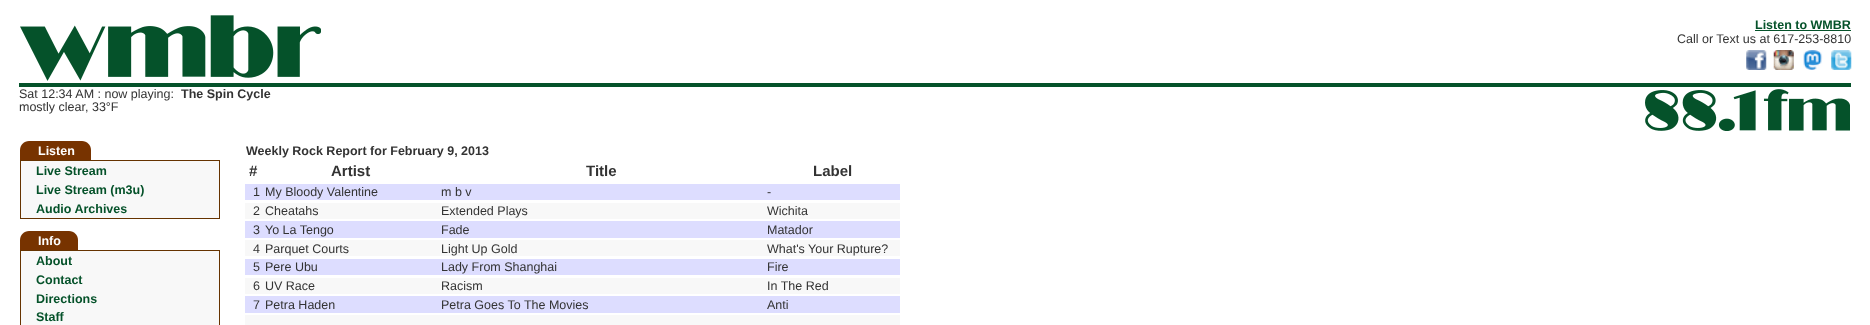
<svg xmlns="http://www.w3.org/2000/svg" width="1870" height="325">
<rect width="100%" height="100%" fill="#fff"/>
<image x="20" y="15" width="301" height="66" href="media/1.png"/>
<text x="1755" y="29" style="font-family:Liberation Sans;font-size:12.5px;font-weight:bold;fill:#05522a">Listen to WMBR</text>
<rect x="1755" y="30" width="96" height="1" fill="#05522a"/>
<text x="1677" y="43" style="font-family:Liberation Sans;font-size:12.5px;fill:#333">Call or Text us at 617-253-8810</text>
<image x="1746" y="50" width="21" height="20" href="media/2.png"/>
<image x="1773" y="50" width="21" height="20" href="media/3.png"/>
<image x="1803" y="50" width="20" height="20" href="media/4.png"/>
<image x="1831" y="50" width="21" height="20" href="media/5.png"/>
<rect x="19" y="83" width="1832" height="4" fill="#05522a"/>
<text x="19" y="98" style="font-family:Liberation Sans;font-size:12.5px;fill:#333">Sat 12:34 AM : now playing:</text>
<text x="181" y="98" style="font-family:Liberation Sans;font-size:12.5px;font-weight:bold;fill:#333">The Spin Cycle</text>
<text x="19" y="111" style="font-family:Liberation Sans;font-size:12.5px;fill:#333">mostly clear, 33°F</text>
<image x="1645" y="89" width="205" height="42" href="media/6.png"/>
<path d="M29 141h53c5 0 9 4 9 9v10h-71v-10c0-5 4-9 9-9z" fill="#730"/>
<text x="38" y="155" style="font-family:Liberation Sans;font-size:12.5px;font-weight:bold;fill:#fff">Listen</text>
<rect x="20" y="160" width="200" height="1" fill="#630"/>
<rect x="219" y="160" width="1" height="59" fill="#630"/>
<rect x="20" y="218" width="200" height="1" fill="#630"/>
<rect x="20" y="160" width="1" height="59" fill="#630"/>
<rect x="21" y="161" width="198" height="57" fill="#f8f8f8"/>
<text x="36" y="175" style="font-family:Liberation Sans;font-size:12.5px;font-weight:bold;fill:#05522a">Live Stream</text>
<text x="36" y="194" style="font-family:Liberation Sans;font-size:12.5px;font-weight:bold;fill:#05522a">Live Stream (m3u)</text>
<text x="36" y="213" style="font-family:Liberation Sans;font-size:12.5px;font-weight:bold;fill:#05522a">Audio Archives</text>
<path d="M29 231h40c5 0 9 4 9 9v10h-58v-10c0-5 4-9 9-9z" fill="#730"/>
<text x="38" y="245" style="font-family:Liberation Sans;font-size:12.5px;font-weight:bold;fill:#fff">Info</text>
<rect x="20" y="250" width="200" height="1" fill="#630"/>
<rect x="219" y="250" width="1" height="75" fill="#630"/>
<rect x="20" y="250" width="1" height="75" fill="#630"/>
<rect x="21" y="251" width="198" height="74" fill="#f8f8f8"/>
<text x="36" y="265" style="font-family:Liberation Sans;font-size:12.5px;font-weight:bold;fill:#05522a">About</text>
<text x="36" y="284" style="font-family:Liberation Sans;font-size:12.5px;font-weight:bold;fill:#05522a">Contact</text>
<text x="36" y="303" style="font-family:Liberation Sans;font-size:12.5px;font-weight:bold;fill:#05522a">Directions</text>
<text x="36" y="321" style="font-family:Liberation Sans;font-size:12.5px;font-weight:bold;fill:#05522a">Staff</text>
<text x="246" y="155" style="font-family:Liberation Sans;font-size:12.5px;font-weight:bold;fill:#333">Weekly Rock Report for February 9, 2013</text>
<text x="249" y="176" style="font-family:Liberation Sans;font-size:15px;font-weight:bold;fill:#333">#</text>
<text x="331" y="176" style="font-family:Liberation Sans;font-size:15px;font-weight:bold;fill:#333">Artist</text>
<text x="586" y="176" style="font-family:Liberation Sans;font-size:15px;font-weight:bold;fill:#333">Title</text>
<text x="813" y="176" style="font-family:Liberation Sans;font-size:15px;font-weight:bold;fill:#333">Label</text>
<rect x="245" y="184" width="655" height="16" fill="#ddf"/>
<text x="253" y="196" style="font-family:Liberation Sans;font-size:12.5px;fill:#333">1</text>
<text x="265" y="196" style="font-family:Liberation Sans;font-size:12.5px;fill:#333">My Bloody Valentine</text>
<text x="441" y="196" style="font-family:Liberation Sans;font-size:12.5px;fill:#333">m b v</text>
<text x="767" y="196" style="font-family:Liberation Sans;font-size:12.5px;fill:#333">-</text>
<rect x="245" y="203" width="655" height="16" fill="#f8f8f8"/>
<text x="253" y="215" style="font-family:Liberation Sans;font-size:12.5px;fill:#333">2</text>
<text x="265" y="215" style="font-family:Liberation Sans;font-size:12.5px;fill:#333">Cheatahs</text>
<text x="441" y="215" style="font-family:Liberation Sans;font-size:12.5px;fill:#333">Extended Plays</text>
<text x="767" y="215" style="font-family:Liberation Sans;font-size:12.5px;fill:#333">Wichita</text>
<rect x="245" y="221" width="655" height="17" fill="#ddf"/>
<text x="253" y="234" style="font-family:Liberation Sans;font-size:12.5px;fill:#333">3</text>
<text x="265" y="234" style="font-family:Liberation Sans;font-size:12.5px;fill:#333">Yo La Tengo</text>
<text x="441" y="234" style="font-family:Liberation Sans;font-size:12.5px;fill:#333">Fade</text>
<text x="767" y="234" style="font-family:Liberation Sans;font-size:12.5px;fill:#333">Matador</text>
<rect x="245" y="240" width="655" height="16" fill="#f8f8f8"/>
<text x="253" y="253" style="font-family:Liberation Sans;font-size:12.5px;fill:#333">4</text>
<text x="265" y="253" style="font-family:Liberation Sans;font-size:12.5px;fill:#333">Parquet Courts</text>
<text x="441" y="253" style="font-family:Liberation Sans;font-size:12.5px;fill:#333">Light Up Gold</text>
<text x="767" y="253" style="font-family:Liberation Sans;font-size:12.5px;fill:#333">What's Your Rupture?</text>
<rect x="245" y="259" width="655" height="16" fill="#ddf"/>
<text x="253" y="271" style="font-family:Liberation Sans;font-size:12.5px;fill:#333">5</text>
<text x="265" y="271" style="font-family:Liberation Sans;font-size:12.5px;fill:#333">Pere Ubu</text>
<text x="441" y="271" style="font-family:Liberation Sans;font-size:12.5px;fill:#333">Lady From Shanghai</text>
<text x="767" y="271" style="font-family:Liberation Sans;font-size:12.5px;fill:#333">Fire</text>
<rect x="245" y="278" width="655" height="16" fill="#f8f8f8"/>
<text x="253" y="290" style="font-family:Liberation Sans;font-size:12.5px;fill:#333">6</text>
<text x="265" y="290" style="font-family:Liberation Sans;font-size:12.5px;fill:#333">UV Race</text>
<text x="441" y="290" style="font-family:Liberation Sans;font-size:12.5px;fill:#333">Racism</text>
<text x="767" y="290" style="font-family:Liberation Sans;font-size:12.5px;fill:#333">In The Red</text>
<rect x="245" y="296" width="655" height="17" fill="#ddf"/>
<text x="253" y="309" style="font-family:Liberation Sans;font-size:12.5px;fill:#333">7</text>
<text x="265" y="309" style="font-family:Liberation Sans;font-size:12.5px;fill:#333">Petra Haden</text>
<text x="441" y="309" style="font-family:Liberation Sans;font-size:12.5px;fill:#333">Petra Goes To The Movies</text>
<text x="767" y="309" style="font-family:Liberation Sans;font-size:12.5px;fill:#333">Anti</text>
<rect x="245" y="315" width="655" height="10" fill="#f8f8f8"/>
</svg>
